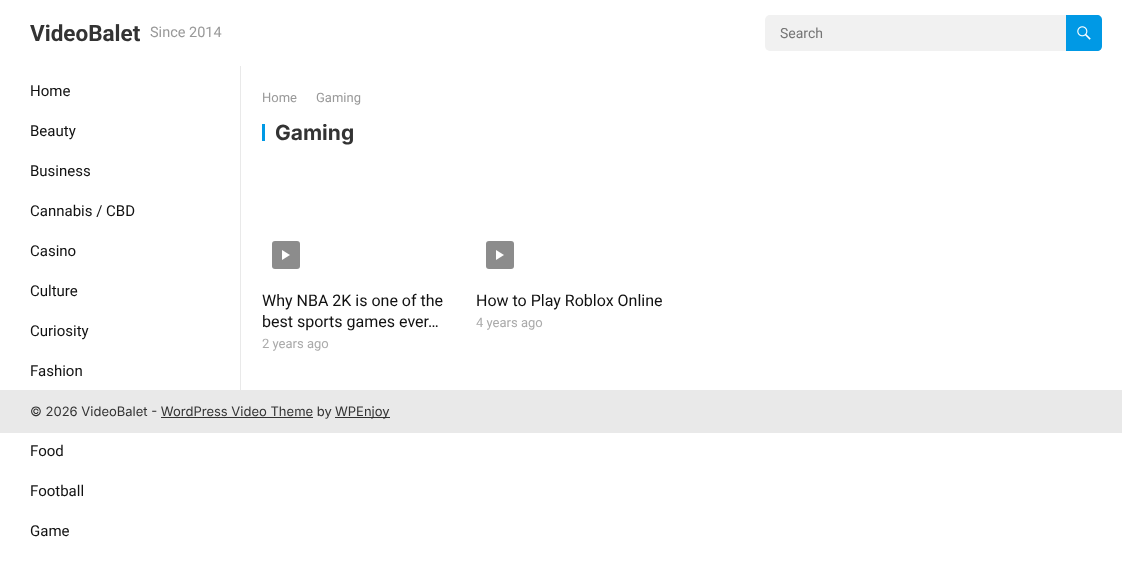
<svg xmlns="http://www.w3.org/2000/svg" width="1122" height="561">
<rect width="100%" height="100%" fill="#fff"/>
<rect x="240" y="66" width="1" height="324" fill="#e9e9e9"/>
<rect width="1122" height="66" fill="#00000066" filter="blur(0.5px)"/>
<rect width="1122" height="66" fill="#fff"/>
<text x="30" y="41" style="font-family:Roboto;font-size:22.5px;font-weight:bold;fill:#333">VideoBalet</text>
<text x="150" y="37" style="font-family:Roboto;font-size:14.5px;fill:#999">Since 2014</text>
<rect x="765" y="15" width="337" height="36" rx="5" fill="#f1f1f1"/>
<text x="780" y="38" style="font-family:Roboto;font-size:14px;fill:#757575">Search</text>
<path d="M1066 15h31c3 0 5 2 5 5v26c0 3-2 5-5 5h-31z" fill="#0099e5"/>
<image x="1077" y="26" width="14" height="14" href="media/1.png"/>
<text x="30" y="96" style="font-family:Roboto;font-size:15px;fill:#111">Home</text>
<text x="30" y="136" style="font-family:Roboto;font-size:15px;fill:#111">Beauty</text>
<text x="30" y="176" style="font-family:Roboto;font-size:15px;fill:#111">Business</text>
<text x="30" y="216" style="font-family:Roboto;font-size:15px;fill:#111">Cannabis / CBD</text>
<text x="30" y="256" style="font-family:Roboto;font-size:15px;fill:#111">Casino</text>
<text x="30" y="296" style="font-family:Roboto;font-size:15px;fill:#111">Culture</text>
<text x="30" y="336" style="font-family:Roboto;font-size:15px;fill:#111">Curiosity</text>
<text x="30" y="376" style="font-family:Roboto;font-size:15px;fill:#111">Fashion</text>
<text x="30" y="456" style="font-family:Roboto;font-size:15px;fill:#111">Food</text>
<text x="30" y="496" style="font-family:Roboto;font-size:15px;fill:#111">Football</text>
<text x="30" y="536" style="font-family:Roboto;font-size:15px;fill:#111">Game</text>
<text x="262" y="102" style="font-family:Roboto;font-size:13px;fill:#999">Home</text>
<text x="316" y="102" style="font-family:Roboto;font-size:13px;fill:#999">Gaming</text>
<rect x="262" y="124" width="3" height="17" fill="#0099e5"/>
<text x="275" y="140" style="font-family:Inter;font-size:21px;font-weight:bold;fill:#333">Gaming</text>
<rect x="272" y="241" width="28" height="28" rx="3" fill="#8c8c8c"/>
<path d="M282 250l8 5l-8 5z" fill="#fff"/>
<text x="262" y="306" style="font-family:Roboto;font-size:16px;fill:#111">Why NBA 2K is one of the</text>
<text x="262" y="327" style="font-family:Roboto;font-size:16px;fill:#111">best sports games ever…</text>
<text x="262" y="348" style="font-family:Roboto;font-size:13px;fill:#aaa">2 years ago</text>
<rect x="486" y="241" width="28" height="28" rx="3" fill="#8c8c8c"/>
<path d="M496 250l8 5l-8 5z" fill="#fff"/>
<text x="476" y="306" style="font-family:Roboto;font-size:16px;fill:#111">How to Play Roblox Online</text>
<text x="476" y="327" style="font-family:Roboto;font-size:13px;fill:#aaa">4 years ago</text>
<rect y="390" width="1122" height="43" fill="#e9e9e9"/>
<text x="30" y="416" style="font-family:Inter;font-size:13px;fill:#333">© 2026 VideoBalet - WordPress Video Theme by</text>
<rect x="335" y="417" width="55" height="1" fill="#333"/>
<text x="335" y="416" style="font-family:Inter;font-size:13px;fill:#333">WPEnjoy</text>
<rect x="161" y="417" width="152" height="1" fill="#333"/>
</svg>
